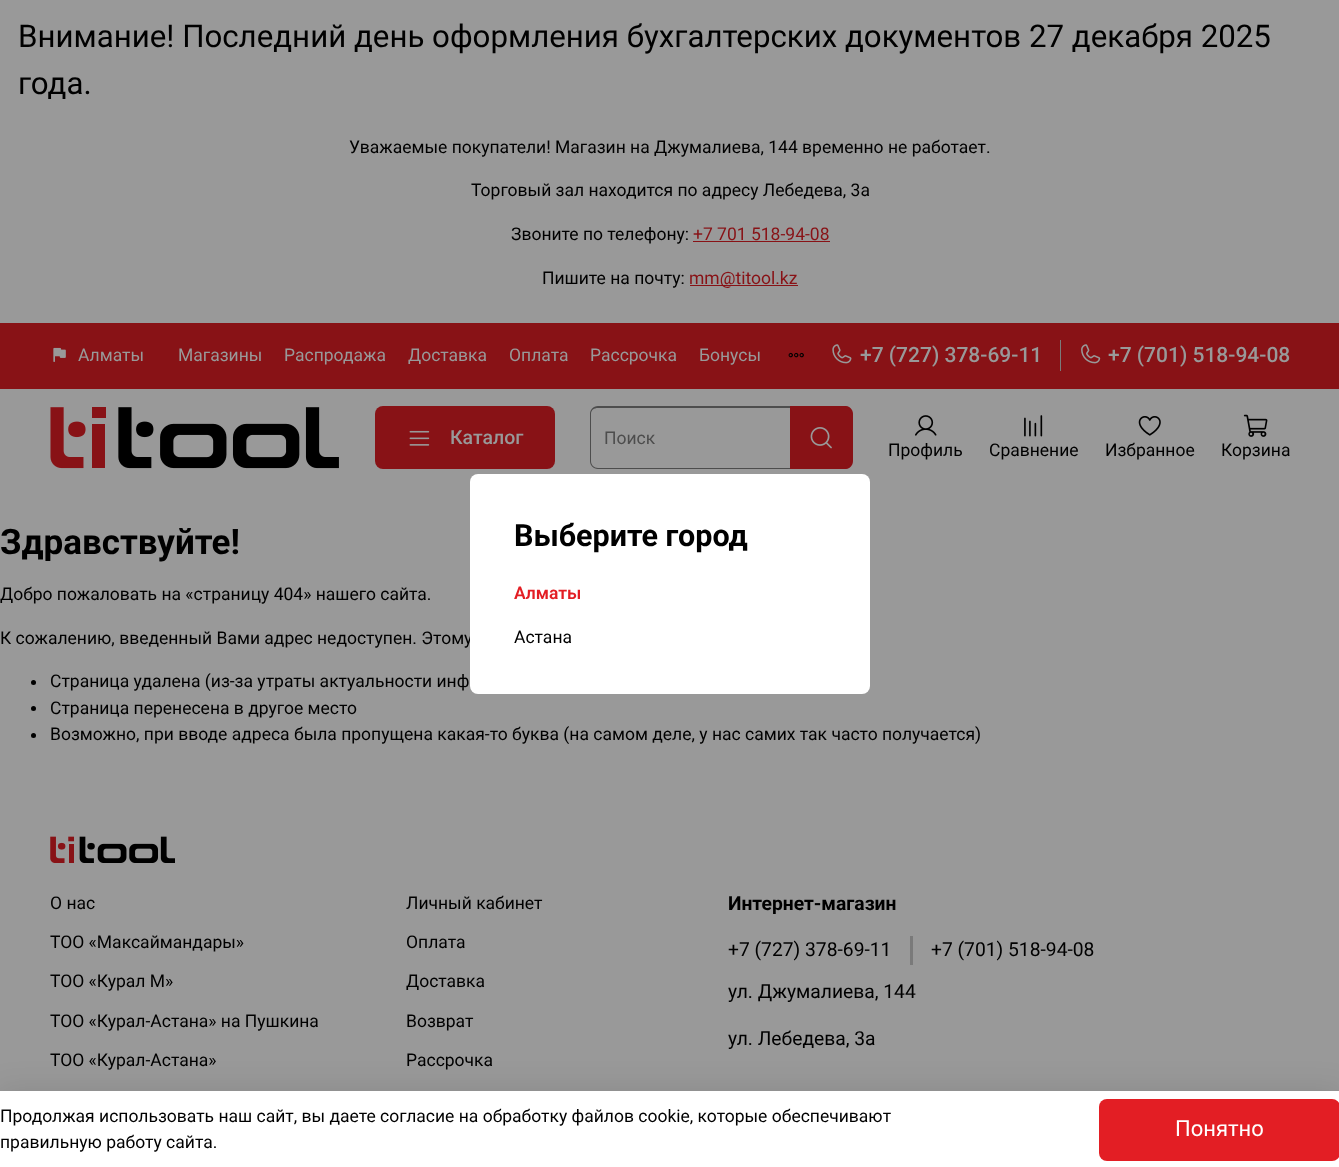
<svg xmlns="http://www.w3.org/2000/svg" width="1339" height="1167">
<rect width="100%" height="100%" fill="#999"/>
<text x="18" y="47" style="font-family:Roboto;font-size:31.25px;fill:#000">Внимание! Последний день оформления бухгалтерских документов 27 декабря 2025</text>
<text x="18" y="94" style="font-family:Roboto;font-size:31.25px;fill:#000">года.</text>
<text x="349" y="153" style="font-family:Roboto;font-size:17.5px;fill:#000">Уважаемые покупатели! Магазин на Джумалиева, 144 временно не работает.</text>
<text x="471" y="196" style="font-family:Roboto;font-size:17.5px;fill:#000">Торговый зал находится по адресу Лебедева, 3а</text>
<text x="511" y="240" style="font-family:Roboto;font-size:17.5px;fill:#000">Звоните по телефону:</text>
<text x="693" y="240" style="font-family:Roboto;font-size:17.5px;fill:#881216">+7 701 518-94-08</text>
<rect x="693" y="241" width="137" height="1" fill="#881216"/>
<text x="542" y="284" style="font-family:Roboto;font-size:17.5px;fill:#000">Пишите на почту:</text>
<rect x="690" y="285" width="108" height="1" fill="#881216"/>
<text x="689" y="284" style="font-family:Roboto;font-size:17.5px;fill:#881216">mm@titool.kz</text>
<rect y="323" width="1339" height="66" fill="#881216"/>
<image x="53" y="347" width="13" height="15" href="media/1.png"/>
<text x="78" y="361" style="font-family:Roboto;font-size:17.5px;fill:#999">Алматы</text>
<text x="178" y="361" style="font-family:Roboto;font-size:17.5px;fill:#999">Магазины</text>
<text x="284" y="361" style="font-family:Roboto;font-size:17.5px;fill:#999">Распродажа</text>
<text x="408" y="361" style="font-family:Roboto;font-size:17.5px;fill:#999">Доставка</text>
<text x="509" y="361" style="font-family:Roboto;font-size:17.5px;fill:#999">Оплата</text>
<text x="590" y="361" style="font-family:Roboto;font-size:17.5px;fill:#999">Рассрочка</text>
<text x="699" y="361" style="font-family:Roboto;font-size:17.5px;fill:#999">Бонусы</text>
<image x="788" y="352" width="16" height="6" href="media/2.png"/>
<rect x="1060" y="340" width="1" height="31" fill="#7a7a7a"/>
<image x="832" y="344" width="20" height="20" href="media/3.png"/>
<text x="860" y="362" style="font-family:Roboto;font-size:21px;font-weight:500;fill:#999">+7 (727) 378-69-11</text>
<image x="1081" y="344" width="20" height="20" href="media/4.png"/>
<text x="1108" y="362" style="font-family:Roboto;font-size:21px;font-weight:500;fill:#999">+7 (701) 518-94-08</text>
<image x="50" y="407" width="289" height="62" href="media/5.png"/>
<rect x="375" y="406" width="180" height="63" rx="8" fill="#881216"/>
<image x="409" y="430" width="21" height="16" href="media/6.png"/>
<text x="450" y="444" style="font-family:Roboto;font-size:19.5px;font-weight:500;fill:#999">Каталог</text>
<path d="M598 406h192v63h-192c-5 0-8-4-8-8v-47c0-4 3-8 8-8zm0 2h192v60h-192c-4 0-7-3-7-7v-47c0-4 3-6 7-6z" fill="#4d4d4d" fill-rule="evenodd"/>
<text x="604" y="444" style="font-family:Roboto;font-size:17.5px;fill:#4d4d4d">Поиск</text>
<path d="M790 406h55c4.5 0 8 3.5 8 8v47c0 4.5-3.5 8-8 8h-55z" fill="#881216"/>
<path d="M790 406h55c4 0 7 4 7 8v47c0 4-3 8-7 8h-55zm0 2h55c3 0 6 2 6 6v47c0 4-3 7-6 7h-55z" fill="#881216" fill-rule="evenodd"/>
<image x="810" y="427" width="22" height="22" href="media/7.png"/>
<image x="915" y="415" width="22" height="21" href="media/8.png"/>
<text x="888" y="456" style="font-family:Roboto;font-size:17.5px;fill:#000">Профиль</text>
<image x="1024" y="415" width="19" height="22" href="media/9.png"/>
<text x="989" y="456" style="font-family:Roboto;font-size:17.5px;fill:#000">Сравнение</text>
<image x="1138" y="416" width="23" height="20" href="media/10.png"/>
<text x="1105" y="456" style="font-family:Roboto;font-size:17.5px;fill:#000">Избранное</text>
<image x="1243" y="414" width="25" height="23" href="media/11.png"/>
<text x="1221" y="456" style="font-family:Roboto;font-size:17.5px;fill:#000">Корзина</text>
<text x="0" y="644" style="font-family:Roboto;font-size:17.5px;fill:#000">К сожалению, введенный Вами адрес недоступен. Этому</text>
<rect x="470" y="474" width="400" height="220" rx="8" fill="#fff"/>
<text x="514" y="546" style="font-family:Roboto;font-size:30.5px;font-weight:bold;fill:#000">Выберите город</text>
<text x="514" y="599" style="font-family:Roboto;font-size:17.5px;font-weight:600;fill:#e31e24">Алматы</text>
<text x="514" y="643" style="font-family:Roboto;font-size:17.5px;fill:#000">Астана</text>
<text x="0" y="554" style="font-family:Roboto;font-size:35px;font-weight:bold;fill:#000">Здравствуйте!</text>
<text x="0" y="600" style="font-family:Roboto;font-size:17.5px;fill:#000">Добро пожаловать на «страницу 404» нашего сайта.</text>
<circle cx="33.5" cy="682.5" r="2.5" fill="#000"/>
<text x="50" y="687" style="font-family:Roboto;font-size:17.5px;fill:#000">Страница удалена (из-за утраты актуальности инф</text>
<circle cx="33.5" cy="708.5" r="2.5" fill="#000"/>
<text x="50" y="714" style="font-family:Roboto;font-size:17.5px;fill:#000">Страница перенесена в другое место</text>
<circle cx="33.5" cy="735.5" r="2.5" fill="#000"/>
<text x="50" y="740" style="font-family:Roboto;font-size:17.5px;fill:#000">Возможно, при вводе адреса была пропущена какая-то буква (на самом деле, у нас самих так часто получается)</text>
<image x="50" y="836" width="125" height="27" href="media/12.png"/>
<text x="50" y="909" style="font-family:Roboto;font-size:17.5px;fill:#000">О нас</text>
<text x="50" y="948" style="font-family:Roboto;font-size:17.5px;fill:#000">ТОО «Максаймандары»</text>
<text x="50" y="987" style="font-family:Roboto;font-size:17.5px;fill:#000">ТОО «Курал М»</text>
<text x="50" y="1027" style="font-family:Roboto;font-size:17.5px;fill:#000">ТОО «Курал-Астана» на Пушкина</text>
<text x="50" y="1066" style="font-family:Roboto;font-size:17.5px;fill:#000">ТОО «Курал-Астана»</text>
<text x="406" y="909" style="font-family:Roboto;font-size:17.5px;fill:#000">Личный кабинет</text>
<text x="406" y="948" style="font-family:Roboto;font-size:17.5px;fill:#000">Оплата</text>
<text x="406" y="987" style="font-family:Roboto;font-size:17.5px;fill:#000">Доставка</text>
<text x="406" y="1027" style="font-family:Roboto;font-size:17.5px;fill:#000">Возврат</text>
<text x="406" y="1066" style="font-family:Roboto;font-size:17.5px;fill:#000">Рассрочка</text>
<text x="728" y="910" style="font-family:Roboto;font-size:19.25px;font-weight:bold;fill:#000">Интернет-магазин</text>
<rect x="910" y="936" width="3" height="29" fill="#7a7a7a"/>
<text x="728" y="956" style="font-family:Roboto;font-size:19.25px;fill:#000">+7 (727) 378-69-11</text>
<text x="931" y="956" style="font-family:Roboto;font-size:19.25px;fill:#000">+7 (701) 518-94-08</text>
<text x="728" y="998" style="font-family:Roboto;font-size:19.25px;fill:#000">ул. Джумалиева, 144</text>
<text x="728" y="1045" style="font-family:Roboto;font-size:19.25px;fill:#000">ул. Лебедева, 3а</text>
<rect x="-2" y="1088" width="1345" height="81" fill="#00000017" filter="blur(14.5px)"/>
<rect y="1091" width="1339" height="76" fill="#fff"/>
<text x="0" y="1122" style="font-family:Roboto;font-size:17.5px;fill:#000">Продолжая использовать наш сайт, вы даете согласие на обработку файлов cookie, которые обеспечивают</text>
<text x="0" y="1148" style="font-family:Roboto;font-size:17.5px;fill:#000">правильную работу сайта.</text>
<rect x="1099" y="1099" width="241" height="62" rx="8" fill="#e31e24"/>
<text x="1175" y="1136" style="font-family:Roboto;font-size:22px;fill:#fff">Понятно</text>
</svg>
